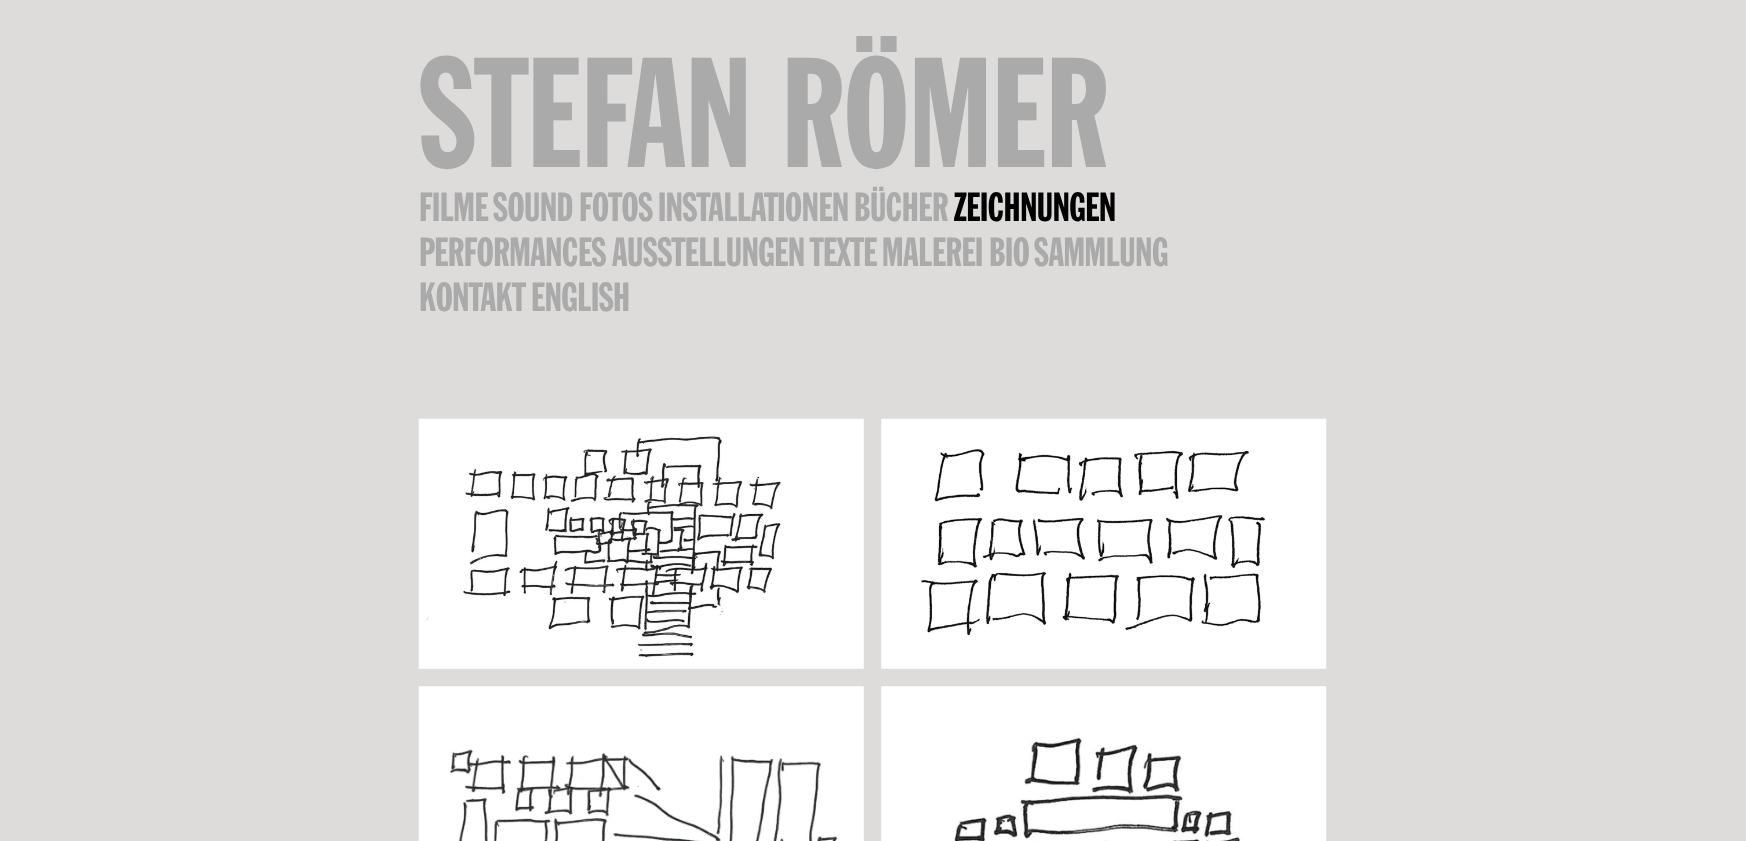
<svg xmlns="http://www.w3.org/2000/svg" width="1746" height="841">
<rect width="100%" height="100%" fill="#dddcdb"/>
<text x="419" y="167" style="font-family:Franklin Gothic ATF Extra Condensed;font-size:153.5px;fill:#aaa">STEFAN RÖMER</text>
<text x="419" y="221" style="font-family:Franklin Gothic ATF Extra Condensed;font-size:40px;letter-spacing:-0.4px;fill:#aaa">FILME</text>
<text x="493" y="221" style="font-family:Franklin Gothic ATF Extra Condensed;font-size:40px;letter-spacing:-0.4px;fill:#aaa">SOUND</text>
<text x="579" y="221" style="font-family:Franklin Gothic ATF Extra Condensed;font-size:40px;letter-spacing:-0.4px;fill:#aaa">FOTOS</text>
<text x="658" y="221" style="font-family:Franklin Gothic ATF Extra Condensed;font-size:40px;letter-spacing:-0.4px;fill:#aaa">INSTALLATIONEN</text>
<text x="854" y="221" style="font-family:Franklin Gothic ATF Extra Condensed;font-size:40px;letter-spacing:-0.4px;fill:#aaa">BÜCHER</text>
<text x="954" y="221" style="font-family:Franklin Gothic ATF Extra Condensed;font-size:40px;letter-spacing:-0.4px;fill:#000">ZEICHNUNGEN</text>
<text x="419" y="266" style="font-family:Franklin Gothic ATF Extra Condensed;font-size:40px;letter-spacing:-0.4px;fill:#aaa">PERFORMANCES</text>
<text x="612" y="266" style="font-family:Franklin Gothic ATF Extra Condensed;font-size:40px;letter-spacing:-0.4px;fill:#aaa">AUSSTELLUNGEN</text>
<text x="810" y="266" style="font-family:Franklin Gothic ATF Extra Condensed;font-size:40px;letter-spacing:-0.4px;fill:#aaa">TEXTE</text>
<text x="882" y="266" style="font-family:Franklin Gothic ATF Extra Condensed;font-size:40px;letter-spacing:-0.4px;fill:#aaa">MALEREI</text>
<text x="989" y="266" style="font-family:Franklin Gothic ATF Extra Condensed;font-size:40px;letter-spacing:-0.4px;fill:#aaa">BIO</text>
<text x="1034" y="266" style="font-family:Franklin Gothic ATF Extra Condensed;font-size:40px;letter-spacing:-0.4px;fill:#aaa">SAMMLUNG</text>
<text x="419" y="311" style="font-family:Franklin Gothic ATF Extra Condensed;font-size:40px;letter-spacing:-0.4px;fill:#aaa">KONTAKT</text>
<text x="531" y="311" style="font-family:Franklin Gothic ATF Extra Condensed;font-size:40px;letter-spacing:-0.4px;fill:#aaa">ENGLISH</text>
<image x="418" y="418" width="446" height="251" href="media/1.png"/>
<image x="881" y="418" width="446" height="251" href="media/2.png"/>
<image x="418" y="686" width="446" height="155" href="media/3.png"/>
<image x="881" y="686" width="446" height="155" href="media/4.png"/>
</svg>
